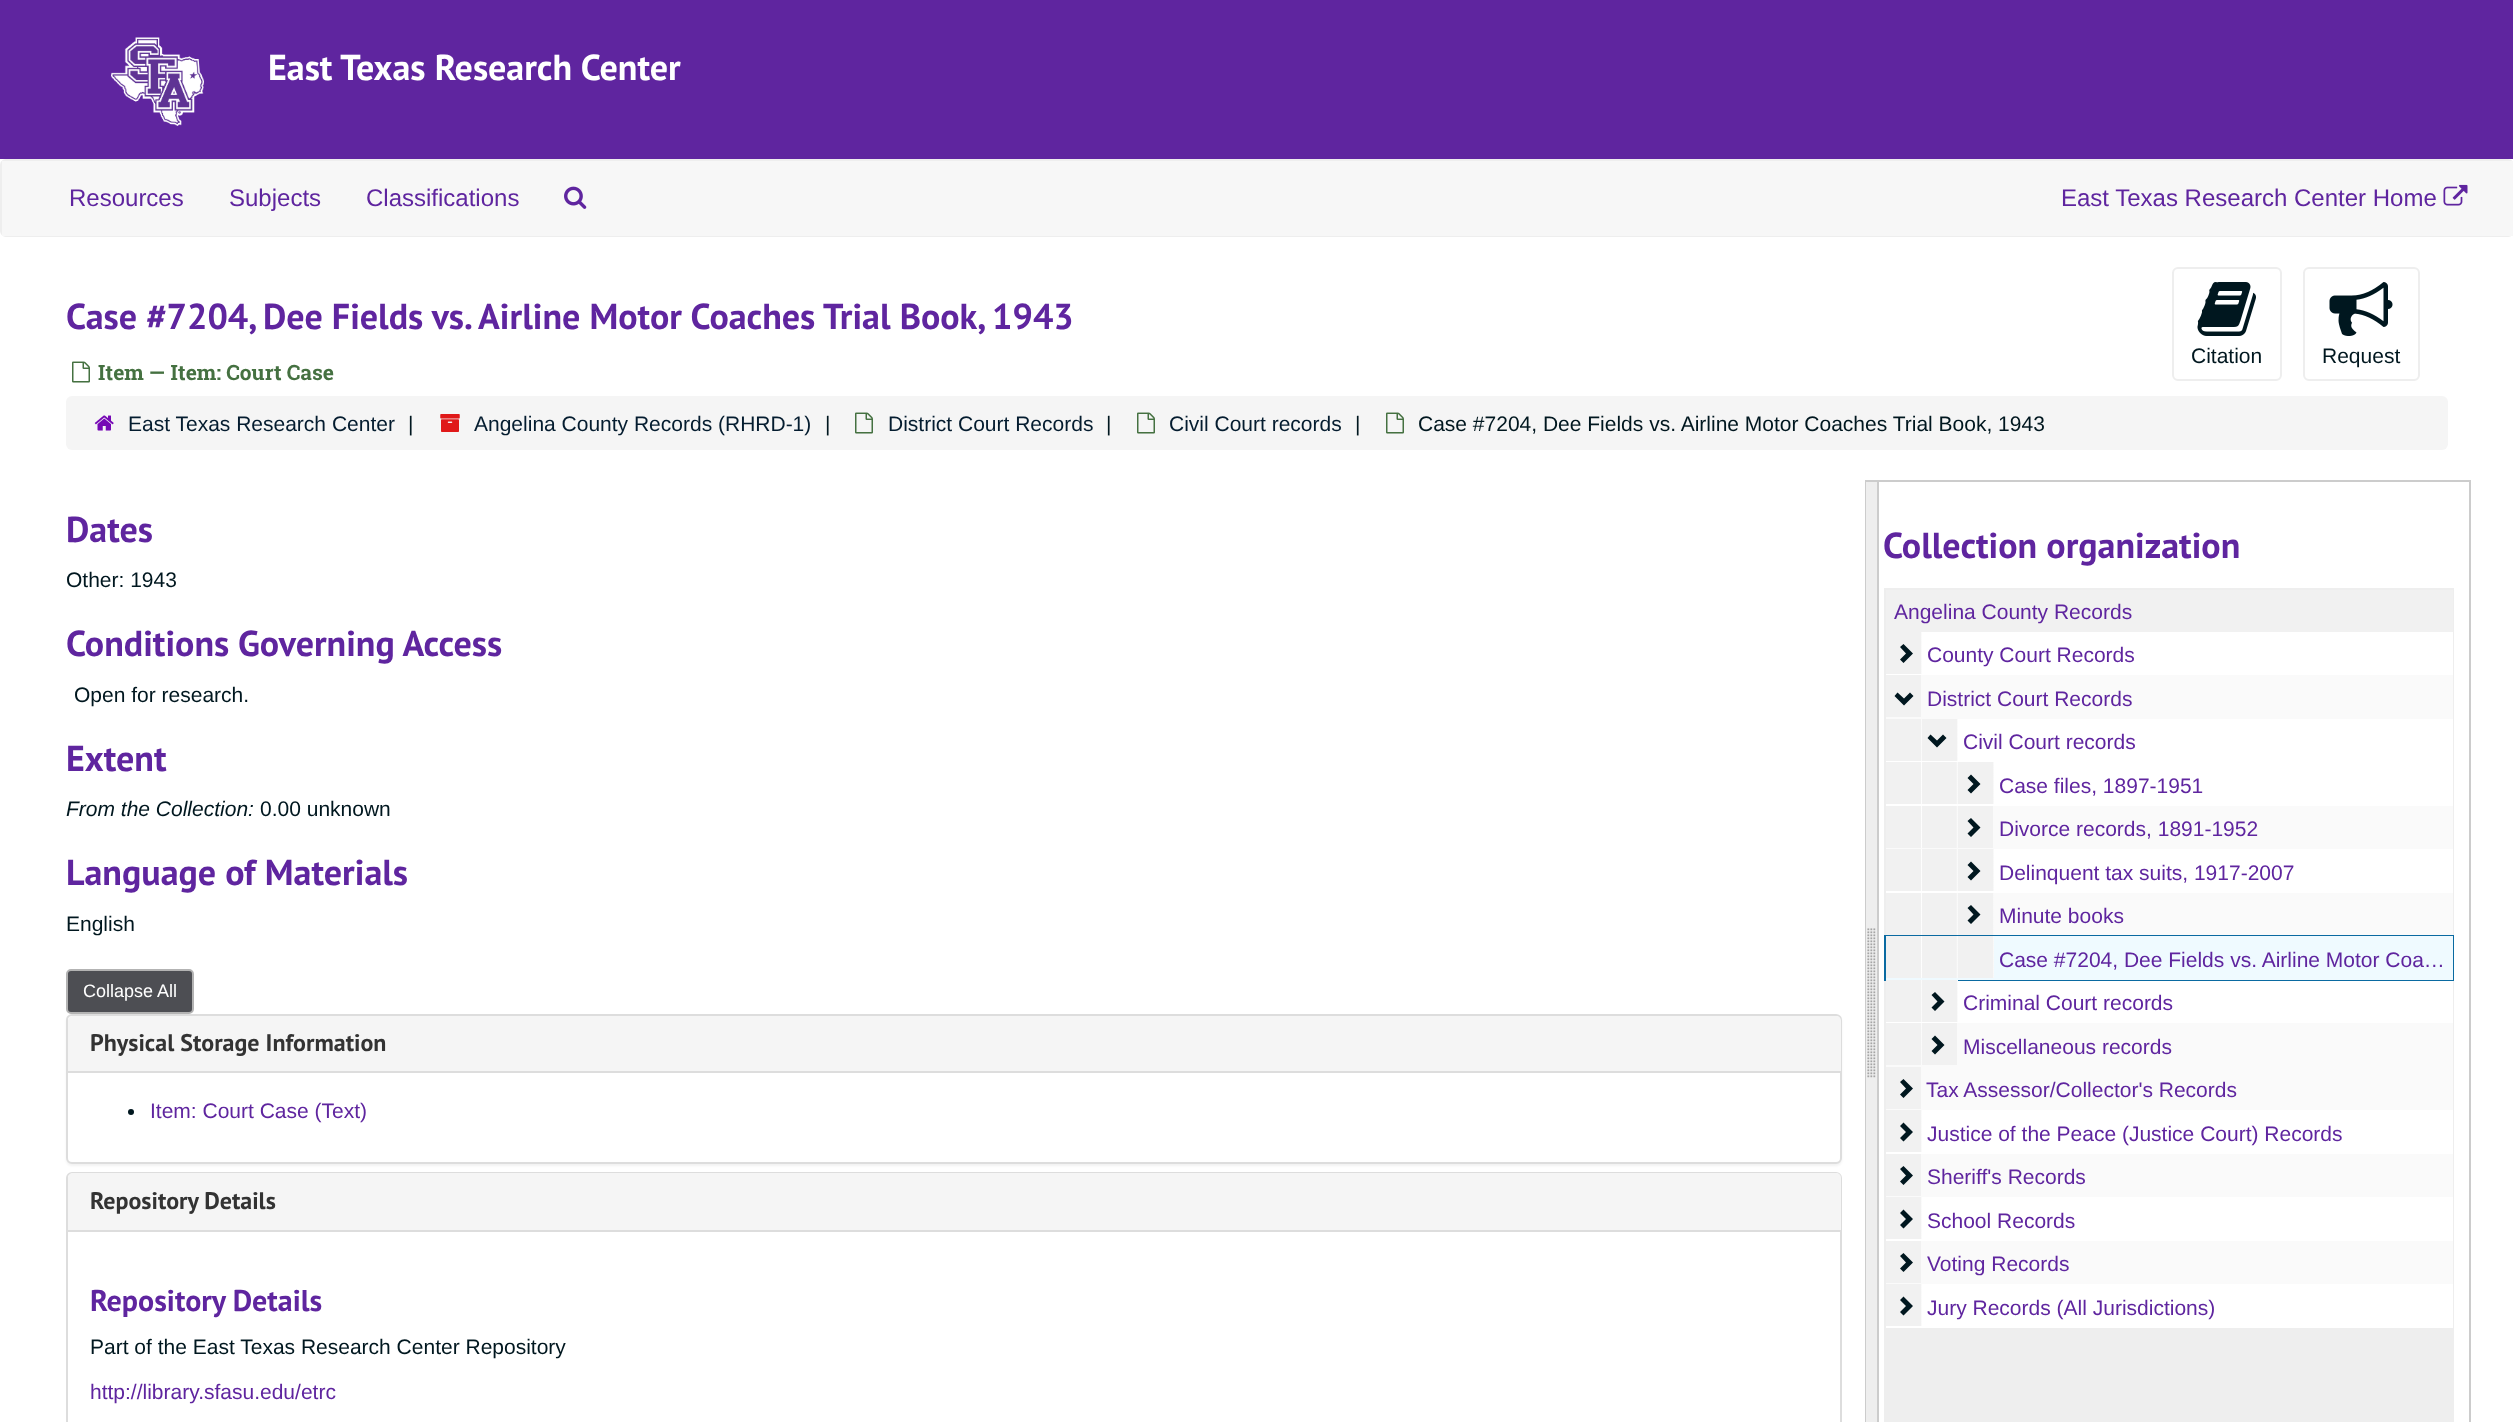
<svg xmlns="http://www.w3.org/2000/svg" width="2513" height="1422">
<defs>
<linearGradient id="g1" gradientUnits="userSpaceOnUse" x1="1886" y1="653" x2="1922" y2="653"><stop offset="0" stop-color="#f1f1f1"/><stop offset="0.96" stop-color="#f1f1f1"/><stop offset="1" stop-color="#fff"/></linearGradient>
<linearGradient id="g2" gradientUnits="userSpaceOnUse" x1="1886" y1="696" x2="1922" y2="696"><stop offset="0" stop-color="#f1f1f1"/><stop offset="0.96" stop-color="#f1f1f1"/><stop offset="1" stop-color="#fff"/></linearGradient>
<linearGradient id="g3" gradientUnits="userSpaceOnUse" x1="1886" y1="740" x2="1958" y2="740"><stop offset="0" stop-color="#f1f1f1"/><stop offset="0.48" stop-color="#f1f1f1"/><stop offset="0.5" stop-color="#fff"/><stop offset="0.5" stop-color="#f1f1f1"/><stop offset="0.98" stop-color="#f1f1f1"/><stop offset="1" stop-color="#fff"/></linearGradient>
<linearGradient id="g4" gradientUnits="userSpaceOnUse" x1="1886" y1="783" x2="1994" y2="783"><stop offset="0" stop-color="#f1f1f1"/><stop offset="0.32" stop-color="#f1f1f1"/><stop offset="0.33" stop-color="#fff"/><stop offset="0.33" stop-color="#f1f1f1"/><stop offset="0.65" stop-color="#f1f1f1"/><stop offset="0.67" stop-color="#fff"/><stop offset="0.67" stop-color="#f1f1f1"/><stop offset="0.99" stop-color="#f1f1f1"/><stop offset="1" stop-color="#fff"/></linearGradient>
<linearGradient id="g5" gradientUnits="userSpaceOnUse" x1="1886" y1="827" x2="1994" y2="827"><stop offset="0" stop-color="#f1f1f1"/><stop offset="0.32" stop-color="#f1f1f1"/><stop offset="0.33" stop-color="#fff"/><stop offset="0.33" stop-color="#f1f1f1"/><stop offset="0.65" stop-color="#f1f1f1"/><stop offset="0.67" stop-color="#fff"/><stop offset="0.67" stop-color="#f1f1f1"/><stop offset="0.99" stop-color="#f1f1f1"/><stop offset="1" stop-color="#fff"/></linearGradient>
<linearGradient id="g6" gradientUnits="userSpaceOnUse" x1="1886" y1="870" x2="1994" y2="870"><stop offset="0" stop-color="#f1f1f1"/><stop offset="0.32" stop-color="#f1f1f1"/><stop offset="0.33" stop-color="#fff"/><stop offset="0.33" stop-color="#f1f1f1"/><stop offset="0.65" stop-color="#f1f1f1"/><stop offset="0.67" stop-color="#fff"/><stop offset="0.67" stop-color="#f1f1f1"/><stop offset="0.99" stop-color="#f1f1f1"/><stop offset="1" stop-color="#fff"/></linearGradient>
<linearGradient id="g7" gradientUnits="userSpaceOnUse" x1="1886" y1="914" x2="1994" y2="914"><stop offset="0" stop-color="#f1f1f1"/><stop offset="0.32" stop-color="#f1f1f1"/><stop offset="0.33" stop-color="#fff"/><stop offset="0.33" stop-color="#f1f1f1"/><stop offset="0.65" stop-color="#f1f1f1"/><stop offset="0.67" stop-color="#fff"/><stop offset="0.67" stop-color="#f1f1f1"/><stop offset="0.99" stop-color="#f1f1f1"/><stop offset="1" stop-color="#fff"/></linearGradient>
<linearGradient id="g8" gradientUnits="userSpaceOnUse" x1="1886" y1="957" x2="1994" y2="957"><stop offset="0" stop-color="#f1f1f1"/><stop offset="0.32" stop-color="#f1f1f1"/><stop offset="0.33" stop-color="#fff"/><stop offset="0.33" stop-color="#f1f1f1"/><stop offset="0.65" stop-color="#f1f1f1"/><stop offset="0.67" stop-color="#fff"/><stop offset="0.67" stop-color="#f1f1f1"/><stop offset="0.99" stop-color="#f1f1f1"/><stop offset="1" stop-color="#fff"/></linearGradient>
<linearGradient id="g9" gradientUnits="userSpaceOnUse" x1="1886" y1="1001" x2="1958" y2="1001"><stop offset="0" stop-color="#f1f1f1"/><stop offset="0.48" stop-color="#f1f1f1"/><stop offset="0.5" stop-color="#fff"/><stop offset="0.5" stop-color="#f1f1f1"/><stop offset="0.98" stop-color="#f1f1f1"/><stop offset="1" stop-color="#fff"/></linearGradient>
<linearGradient id="g10" gradientUnits="userSpaceOnUse" x1="1886" y1="1044" x2="1958" y2="1044"><stop offset="0" stop-color="#f1f1f1"/><stop offset="0.48" stop-color="#f1f1f1"/><stop offset="0.5" stop-color="#fff"/><stop offset="0.5" stop-color="#f1f1f1"/><stop offset="0.98" stop-color="#f1f1f1"/><stop offset="1" stop-color="#fff"/></linearGradient>
<linearGradient id="g11" gradientUnits="userSpaceOnUse" x1="1886" y1="1088" x2="1922" y2="1088"><stop offset="0" stop-color="#f1f1f1"/><stop offset="0.96" stop-color="#f1f1f1"/><stop offset="1" stop-color="#fff"/></linearGradient>
<linearGradient id="g12" gradientUnits="userSpaceOnUse" x1="1886" y1="1131" x2="1922" y2="1131"><stop offset="0" stop-color="#f1f1f1"/><stop offset="0.96" stop-color="#f1f1f1"/><stop offset="1" stop-color="#fff"/></linearGradient>
<linearGradient id="g13" gradientUnits="userSpaceOnUse" x1="1886" y1="1175" x2="1922" y2="1175"><stop offset="0" stop-color="#f1f1f1"/><stop offset="0.96" stop-color="#f1f1f1"/><stop offset="1" stop-color="#fff"/></linearGradient>
<linearGradient id="g14" gradientUnits="userSpaceOnUse" x1="1886" y1="1218" x2="1922" y2="1218"><stop offset="0" stop-color="#f1f1f1"/><stop offset="0.96" stop-color="#f1f1f1"/><stop offset="1" stop-color="#fff"/></linearGradient>
<linearGradient id="g15" gradientUnits="userSpaceOnUse" x1="1886" y1="1262" x2="1922" y2="1262"><stop offset="0" stop-color="#f1f1f1"/><stop offset="0.96" stop-color="#f1f1f1"/><stop offset="1" stop-color="#fff"/></linearGradient>
<linearGradient id="g16" gradientUnits="userSpaceOnUse" x1="1886" y1="1305" x2="1922" y2="1305"><stop offset="0" stop-color="#f1f1f1"/><stop offset="0.96" stop-color="#f1f1f1"/><stop offset="1" stop-color="#fff"/></linearGradient>
</defs>
<rect width="100%" height="100%" fill="#fff"/>
<rect width="2513" height="159" fill="#5f259f"/>
<image x="111" y="37" width="93" height="89" href="media/1.png"/>
<text x="268" y="80" style="font-family:PT Sans;font-size:36px;font-weight:bold;fill:#fff">East Texas Research Center</text>
<rect x="1" y="160" width="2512" height="76" rx="5" fill="none" stroke="#eee" stroke-width="2"/>
<rect x="2" y="161" width="2511" height="75" fill="#f7f7f7"/>
<text x="69" y="206" style="font-family:Liberation Sans;font-size:24px;fill:#5f259f">Resources</text>
<text x="229" y="206" style="font-family:Liberation Sans;font-size:24px;fill:#5f259f">Subjects</text>
<text x="366" y="206" style="font-family:Liberation Sans;font-size:24px;fill:#5f259f">Classifications</text>
<image x="564" y="186" width="23" height="23" href="media/2.png"/>
<text x="2061" y="206" style="font-family:Liberation Sans;font-size:24px;fill:#5f259f">East Texas Research Center Home</text>
<image x="2443" y="184" width="25" height="22" href="media/3.png"/>
<text x="66" y="329" style="font-family:PT Sans;font-size:36px;font-weight:bold;fill:#5f259f">Case #7204, Dee Fields vs. Airline Motor Coaches Trial Book, 1943</text>
<image x="72" y="361" width="18" height="22" href="media/4.png"/>
<text x="98" y="380" style="font-family:Roboto Slab;font-size:21px;font-weight:bold;fill:#457141">Item — Item: Court Case</text>
<rect x="2173" y="268" width="108" height="112" rx="5" fill="none" stroke="#eee" stroke-width="2"/>
<image x="2197" y="282" width="59" height="54" href="media/5.png"/>
<text x="2191" y="363" style="font-family:Liberation Sans;font-size:21px;fill:#00171f">Citation</text>
<rect x="2304" y="268" width="115" height="112" rx="5" fill="none" stroke="#eee" stroke-width="2"/>
<image x="2329" y="282" width="64" height="54" href="media/6.png"/>
<text x="2322" y="363" style="font-family:Liberation Sans;font-size:21px;fill:#00171f">Request</text>
<rect x="66" y="396" width="2382" height="54" rx="6" fill="#f5f5f5"/>
<image x="94" y="415" width="20" height="16" href="media/7.png"/>
<text x="128" y="431" style="font-family:Liberation Sans;font-size:21px;fill:#041c2f">East Texas Research Center</text>
<text x="408" y="431" style="font-family:Liberation Sans;font-size:21px;fill:#00171f">|</text>
<image x="440" y="414" width="20" height="18" href="media/8.png"/>
<text x="474" y="431" style="font-family:Liberation Sans;font-size:21px;fill:#041c2f">Angelina County Records (RHRD-1)</text>
<text x="825" y="431" style="font-family:Liberation Sans;font-size:21px;fill:#00171f">|</text>
<image x="855" y="412" width="18" height="22" href="media/9.png"/>
<text x="888" y="431" style="font-family:Liberation Sans;font-size:21px;fill:#041c2f">District Court Records</text>
<text x="1106" y="431" style="font-family:Liberation Sans;font-size:21px;fill:#00171f">|</text>
<image x="1137" y="412" width="18" height="22" href="media/9.png"/>
<text x="1169" y="431" style="font-family:Liberation Sans;font-size:21px;fill:#041c2f">Civil Court records</text>
<text x="1355" y="431" style="font-family:Liberation Sans;font-size:21px;fill:#00171f">|</text>
<image x="1386" y="412" width="18" height="22" href="media/9.png"/>
<text x="1418" y="431" style="font-family:Liberation Sans;font-size:21px;fill:#00171f">Case #7204, Dee Fields vs. Airline Motor Coaches Trial Book, 1943</text>
<text x="66" y="542" style="font-family:PT Sans;font-size:36px;font-weight:bold;fill:#5f259f">Dates</text>
<text x="66" y="587" style="font-family:Liberation Sans;font-size:21px;fill:#00171f">Other: 1943</text>
<text x="66" y="656" style="font-family:PT Sans;font-size:36px;font-weight:bold;fill:#5f259f">Conditions Governing Access</text>
<text x="74" y="702" style="font-family:Liberation Sans;font-size:21px;fill:#00171f">Open for research.</text>
<text x="66" y="771" style="font-family:PT Sans;font-size:36px;font-weight:bold;fill:#5f259f">Extent</text>
<text x="66" y="816" style="font-family:Liberation Sans;font-size:21px;font-style:italic;fill:#00171f">From the Collection:</text>
<text x="260" y="816" style="font-family:Liberation Sans;font-size:21px;fill:#00171f">0.00 unknown</text>
<text x="66" y="885" style="font-family:PT Sans;font-size:36px;font-weight:bold;fill:#5f259f">Language of Materials</text>
<text x="66" y="931" style="font-family:Liberation Sans;font-size:21px;fill:#00171f">English</text>
<rect x="66" y="1016" width="1776" height="150" rx="6" fill="#0000000d" filter="blur(1px)"/>
<rect x="67" y="970" width="126" height="43" rx="4" fill="#4d4e53" stroke="#b3b3b3" stroke-width="2"/>
<text x="83" y="997" style="font-family:Liberation Sans;font-size:18px;fill:#fff">Collapse All</text>
<rect x="67" y="1015" width="1774" height="148" rx="5" fill="#fff" stroke="#ddd" stroke-width="2"/>
<path d="M73 1016h1763c3 0 5 2 5 5v50h-1773v-50c0-3 2-5 5-5z" fill="#f5f5f5"/>
<text x="90" y="1051" style="font-family:PT Sans;font-size:24px;font-weight:bold;fill:#333">Physical Storage Information</text>
<rect x="68" y="1071" width="1773" height="2" fill="#ddd"/>
<circle cx="131" cy="1112" r="3" fill="#00171f"/>
<text x="150" y="1118" style="font-family:Liberation Sans;font-size:21px;fill:#5f259f">Item: Court Case (Text)</text>
<rect x="67" y="1173" width="1774" height="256" rx="5" fill="none" stroke="#ddd" stroke-width="2"/>
<path d="M73 1173h1763c3 0 5 2 5 5v52h-1773v-52c0-3 2-5 5-5z" fill="#f5f5f5"/>
<text x="90" y="1209" style="font-family:PT Sans;font-size:24px;font-weight:bold;fill:#333">Repository Details</text>
<rect x="68" y="1230" width="1773" height="2" fill="#ddd"/>
<text x="90" y="1311" style="font-family:PT Sans;font-size:30px;font-weight:bold;fill:#5f259f">Repository Details</text>
<text x="90" y="1354" style="font-family:Liberation Sans;font-size:21px;fill:#00171f">Part of the East Texas Research Center Repository</text>
<text x="90" y="1399" style="font-family:Liberation Sans;font-size:21px;fill:#5f259f">http://library.sfasu.edu/etrc</text>
<rect x="1866" y="481" width="604" height="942" fill="none" stroke="#ccc" stroke-width="2"/>
<rect x="1866" y="482" width="11" height="940" fill="#eee"/>
<image x="1867" y="928" width="9" height="150" href="media/10.png"/>
<rect x="1877" y="482" width="2" height="940" fill="#ccc"/>
<text x="1883" y="558" style="font-family:PT Sans;font-size:36px;font-weight:bold;fill:#5f259f">Collection organization</text>
<rect x="1884" y="588" width="570" height="834" fill="#eee"/>
<rect x="1886" y="590" width="567" height="42" fill="#f1f1f1"/>
<text x="1894" y="619" style="font-family:Liberation Sans;font-size:21px;fill:#5f259f">Angelina County Records</text>
<rect x="1886" y="632" width="567" height="43" fill="#fff"/>
<rect x="1886" y="632" width="36" height="42" fill="url(#g1)"/>
<rect x="1886" y="675" width="567" height="44" fill="#fafafa"/>
<rect x="1886" y="675" width="35" height="42" fill="url(#g2)"/>
<path d="M1913 653.5l-9.5 9.5l-3.5-3.5l6-6l-6-6.5l3.5-3zm-9 52l-9.5-9.5l3-3.5l6.5 6l6-6l3.5 3.5z" fill="#00171f"/>
<text x="1927" y="662" style="font-family:Liberation Sans;font-size:21px;fill:#5f259f">County Court Records</text>
<text x="1927" y="706" style="font-family:Liberation Sans;font-size:21px;fill:#5f259f">District Court Records</text>
<rect x="1886" y="719" width="567" height="87" fill="#fff"/>
<rect x="1886" y="719" width="72" height="42" fill="url(#g3)"/>
<text x="1963" y="749" style="font-family:Liberation Sans;font-size:21px;fill:#5f259f">Civil Court records</text>
<rect x="1886" y="762" width="108" height="42" fill="url(#g4)"/>
<path d="M1937 747.5l-9.5-9.5l3-3.5l6.5 6l6-6l3.5 3.5zm43.5 36.5l-9.5 9.5l-3.5-3.5l6-6l-6-6l3.5-3.5z" fill="#00171f"/>
<text x="1999" y="793" style="font-family:Liberation Sans;font-size:21px;fill:#5f259f">Case files, 1897-1951</text>
<rect x="1886" y="806" width="567" height="43" fill="#fafafa"/>
<rect x="1886" y="806" width="107" height="42" fill="url(#g5)"/>
<rect x="1886" y="849" width="567" height="44" fill="#fff"/>
<rect x="1886" y="849" width="108" height="42" fill="url(#g6)"/>
<path d="M1980.5 827.5l-9.5 9.5l-3.5-3.5l6-6l-6-6.5l3.5-3zm0 43.5l-9.5 9.5l-3.5-3.5l6-6l-6-6l3.5-3.5z" fill="#00171f"/>
<text x="1999" y="836" style="font-family:Liberation Sans;font-size:21px;fill:#5f259f">Divorce records, 1891-1952</text>
<text x="1999" y="880" style="font-family:Liberation Sans;font-size:21px;fill:#5f259f">Delinquent tax suits, 1917-2007</text>
<rect x="1994" y="893" width="459" height="42" fill="#fafafa"/>
<rect x="1886" y="893" width="108" height="42" fill="url(#g7)"/>
<path d="M1980.5 914.5l-9.5 9.5l-3.5-3.5l6-6l-6-6.5l3.5-3z" fill="#00171f"/>
<text x="1999" y="923" style="font-family:Liberation Sans;font-size:21px;fill:#5f259f">Minute books</text>
<rect x="1885" y="936" width="568" height="44" fill="none" stroke="#0a6aa1" stroke-width="2"/>
<rect x="1886" y="936" width="567" height="44" fill="#effaff"/>
<rect x="1886" y="936" width="108" height="42" fill="url(#g8)"/>
<text x="1999" y="967" style="font-family:Liberation Sans;font-size:21px;fill:#5f259f">Case #7204, Dee Fields vs. Airline Motor Coa…</text>
<rect x="1886" y="981" width="567" height="42" fill="#fff"/>
<rect x="1886" y="980" width="72" height="42" fill="url(#g9)"/>
<rect x="1886" y="1023" width="567" height="87" fill="#fafafa"/>
<rect x="1886" y="1023" width="71" height="42" fill="url(#g10)"/>
<path d="M1944.5 1001.5l-9.5 9.5l-3.5-3.5l6-6l-6-6.5l3.5-3zm0 43.5l-9.5 9.5l-3.5-3.5l6-6l-6-6l3.5-3.5z" fill="#00171f"/>
<text x="1963" y="1010" style="font-family:Liberation Sans;font-size:21px;fill:#5f259f">Criminal Court records</text>
<text x="1963" y="1054" style="font-family:Liberation Sans;font-size:21px;fill:#5f259f">Miscellaneous records</text>
<rect x="1886" y="1067" width="35" height="42" fill="url(#g11)"/>
<rect x="1886" y="1110" width="567" height="44" fill="#fff"/>
<rect x="1886" y="1110" width="36" height="42" fill="url(#g12)"/>
<path d="M1913 1088.5l-9.5 9.5l-3.5-3.5l6-6l-6-6.5l3.5-3zm0 43.5l-9.5 9.5l-3.5-3.5l6-6l-6-6l3.5-3.5z" fill="#00171f"/>
<text x="1926" y="1097" style="font-family:Liberation Sans;font-size:21px;fill:#5f259f">Tax Assessor/Collector's Records</text>
<text x="1927" y="1141" style="font-family:Liberation Sans;font-size:21px;fill:#5f259f">Justice of the Peace (Justice Court) Records</text>
<rect x="1886" y="1154" width="567" height="43" fill="#fafafa"/>
<rect x="1886" y="1154" width="35" height="42" fill="url(#g13)"/>
<rect x="1886" y="1197" width="567" height="44" fill="#fff"/>
<rect x="1886" y="1197" width="36" height="42" fill="url(#g14)"/>
<path d="M1913 1175.5l-9.5 9.5l-3.5-3.5l6-6l-6-6.5l3.5-3zm0 43.5l-9.5 9.5l-3.5-3.5l6-6l-6-6l3.5-3.5z" fill="#00171f"/>
<text x="1927" y="1184" style="font-family:Liberation Sans;font-size:21px;fill:#5f259f">Sheriff's Records</text>
<text x="1927" y="1228" style="font-family:Liberation Sans;font-size:21px;fill:#5f259f">School Records</text>
<rect x="1886" y="1241" width="567" height="43" fill="#fafafa"/>
<rect x="1886" y="1241" width="35" height="42" fill="url(#g15)"/>
<rect x="1886" y="1284" width="567" height="44" fill="#fff"/>
<rect x="1886" y="1284" width="36" height="42" fill="url(#g16)"/>
<path d="M1913 1262.5l-9.5 9.5l-3.5-3.5l6-6l-6-6.5l3.5-3zm0 43.5l-9.5 9.5l-3.5-3.5l6-6l-6-6l3.5-3.5z" fill="#00171f"/>
<text x="1927" y="1271" style="font-family:Liberation Sans;font-size:21px;fill:#5f259f">Voting Records</text>
<text x="1927" y="1315" style="font-family:Liberation Sans;font-size:21px;fill:#5f259f">Jury Records (All Jurisdictions)</text>
</svg>
